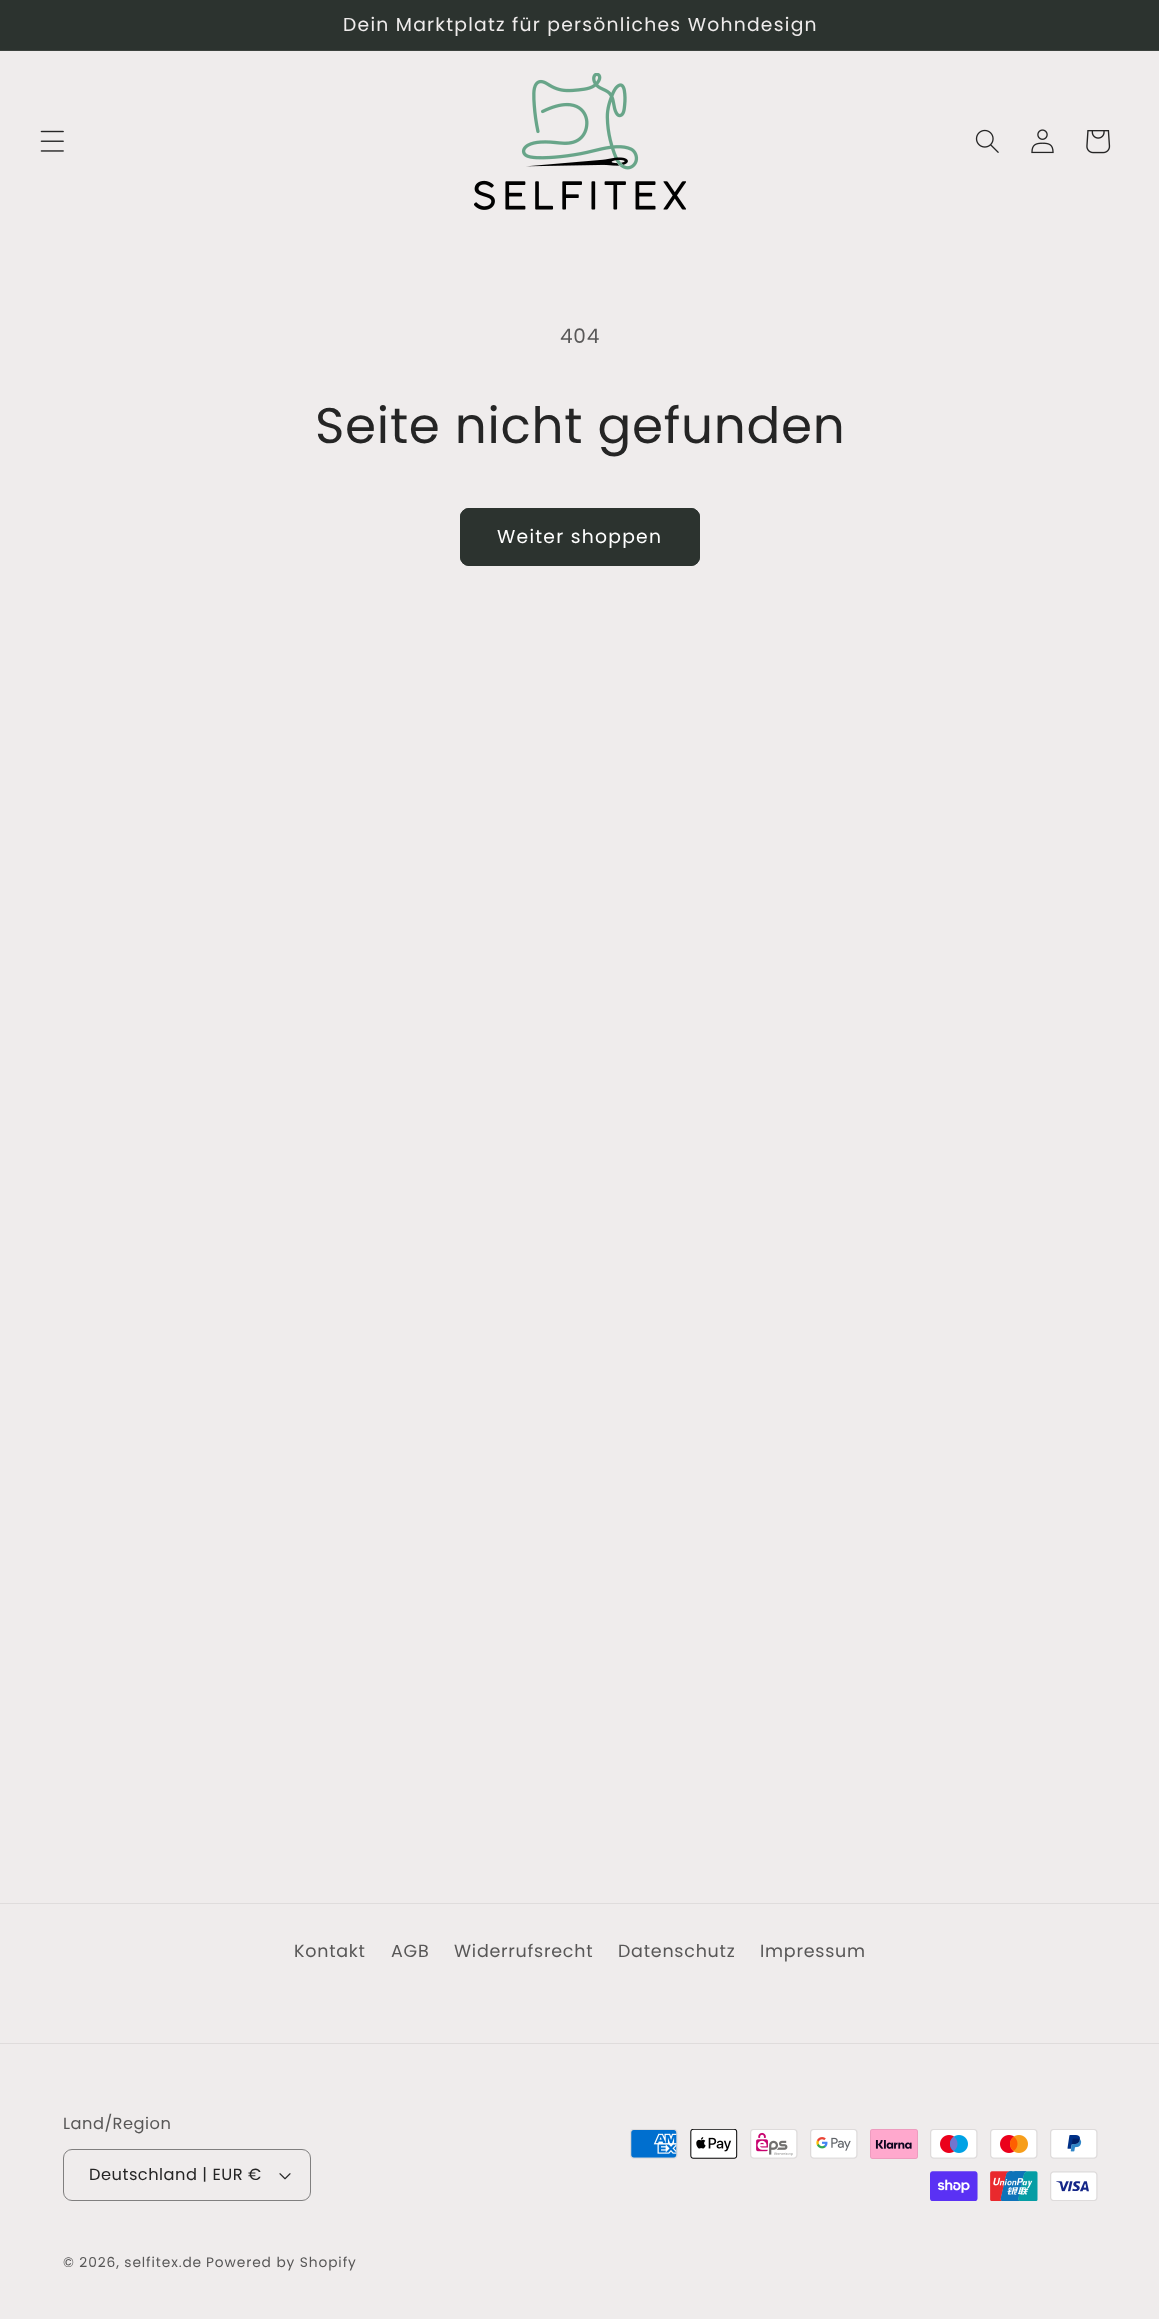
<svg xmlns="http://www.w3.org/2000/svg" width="1159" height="2319">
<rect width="100%" height="100%" fill="#efecec"/>
<rect width="1159" height="50" fill="#2c332f"/>
<rect y="50" width="1159" height="1" fill="#3c423e"/>
<text x="343" y="31" style="font-family:Poppins;font-size:18.75px;letter-spacing:1.25px;fill:#efecec">Dein Marktplatz für persönliches Wohndesign</text>
<image x="40" y="130" width="24" height="22" href="media/1.png"/>
<image x="474" y="73" width="212" height="137" href="media/2.png"/>
<image x="975" y="129" width="24" height="24" href="media/3.png"/>
<image x="1031" y="129" width="23" height="25" href="media/4.png"/>
<image x="1086" y="130" width="25" height="24" href="media/5.png"/>
<text x="560" y="343" style="font-family:Poppins;font-size:20px;letter-spacing:0.75px;fill:#585757">404</text>
<text x="315" y="443" style="font-family:Poppins;font-size:50px;letter-spacing:0.75px;fill:#252525">Seite nicht gefunden</text>
<rect x="460" y="508" width="240" height="58" rx="9" fill="#2c332f"/>
<rect x="460.5" y="508.5" width="239" height="57" rx="8.5" fill="none" stroke="#2c332f"/>
<text x="497" y="543" style="font-family:Poppins;font-size:18.75px;letter-spacing:1.25px;fill:#fff">Weiter shoppen</text>
<rect y="1903" width="1159" height="1" fill="#dfdcdc"/>
<text x="294" y="1957" style="font-family:Poppins;font-size:17.5px;letter-spacing:0.75px;fill:#585757">Kontakt</text>
<text x="391" y="1957" style="font-family:Poppins;font-size:17.5px;letter-spacing:0.75px;fill:#585757">AGB</text>
<text x="454" y="1957" style="font-family:Poppins;font-size:17.5px;letter-spacing:0.75px;fill:#585757">Widerrufsrecht</text>
<text x="618" y="1957" style="font-family:Poppins;font-size:17.5px;letter-spacing:0.75px;fill:#585757">Datenschutz</text>
<text x="760" y="1957" style="font-family:Poppins;font-size:17.5px;letter-spacing:0.75px;fill:#585757">Impressum</text>
<rect y="2043" width="1159" height="1" fill="#dfdcdc"/>
<text x="63" y="2129" style="font-family:Poppins;font-size:16.25px;letter-spacing:0.5px;fill:#585757">Land/Region</text>
<image x="279" y="2173" width="12" height="7" href="media/6.png"/>
<rect x="63.5" y="2149.5" width="247" height="51" rx="8.5" fill="none" stroke="#807f7f"/>
<text x="89" y="2180" style="font-family:Poppins;font-size:16.25px;letter-spacing:0.5px;fill:#252525">Deutschland | EUR €</text>
<image x="630" y="2129" width="48" height="30" href="media/7.png"/>
<image x="690" y="2129" width="48" height="30" href="media/8.png"/>
<image x="750" y="2129" width="48" height="30" href="media/9.png"/>
<image x="810" y="2129" width="48" height="30" href="media/10.png"/>
<image x="870" y="2129" width="48" height="30" href="media/11.png"/>
<image x="930" y="2129" width="48" height="30" href="media/12.png"/>
<image x="990" y="2129" width="48" height="30" href="media/13.png"/>
<image x="1050" y="2129" width="48" height="30" href="media/14.png"/>
<image x="930" y="2171" width="48" height="30" href="media/15.png"/>
<image x="990" y="2171" width="48" height="30" href="media/16.png"/>
<image x="1050" y="2171" width="48" height="30" href="media/17.png"/>
<text x="63" y="2267" style="font-family:Poppins;font-size:13.75px;letter-spacing:0.9px;fill:#585757">© 2026, selfitex.de</text>
<text x="206" y="2267" style="font-family:Poppins;font-size:13.75px;letter-spacing:0.9px;fill:#585757">Powered by Shopify</text>
</svg>
